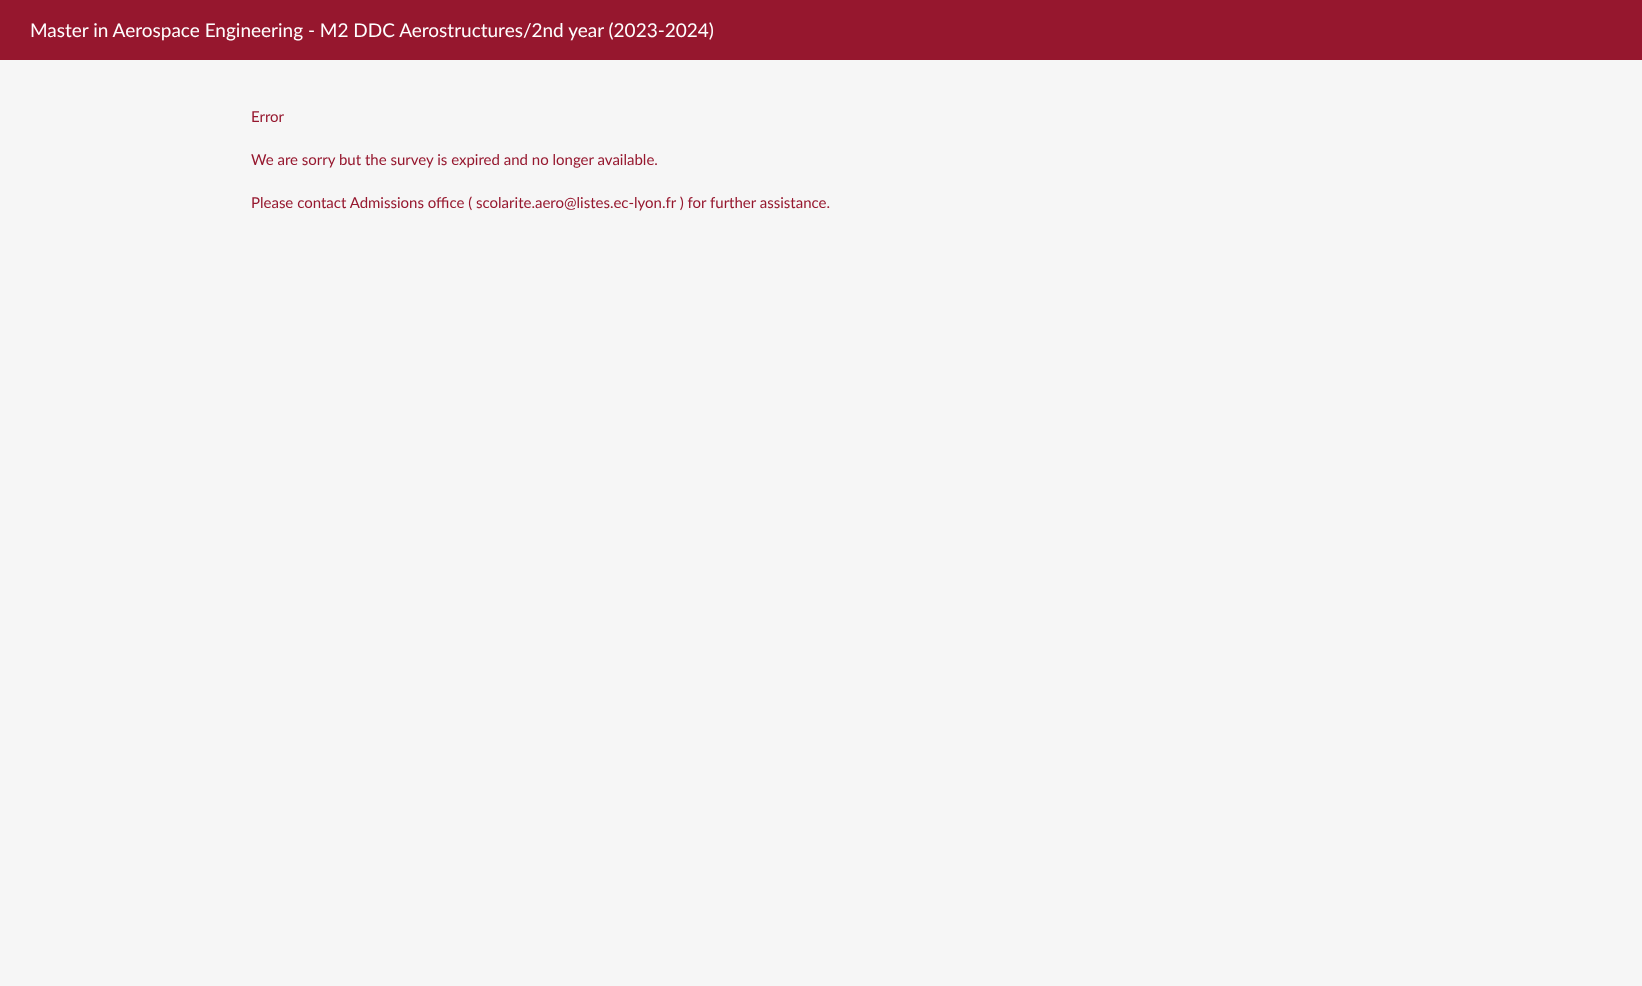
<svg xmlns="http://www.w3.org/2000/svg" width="1642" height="986">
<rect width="100%" height="100%" fill="#f6f6f6"/>
<rect width="1642" height="60" fill="#96172e"/>
<text x="30" y="37" style="font-family:Lato;font-size:19px;fill:#fff">Master in Aerospace Engineering - M2 DDC Aerostructures/2nd year (2023-2024)</text>
<text x="251" y="122" style="font-family:Lato;font-size:15px;fill:#96172e">Error</text>
<text x="251" y="165" style="font-family:Lato;font-size:15px;fill:#96172e">We are sorry but the survey is expired and no longer available.</text>
<text x="251" y="208" style="font-family:Lato;font-size:15px;fill:#96172e">Please contact Admissions office ( scolarite.aero@listes.ec-lyon.fr ) for further assistance.</text>
</svg>
